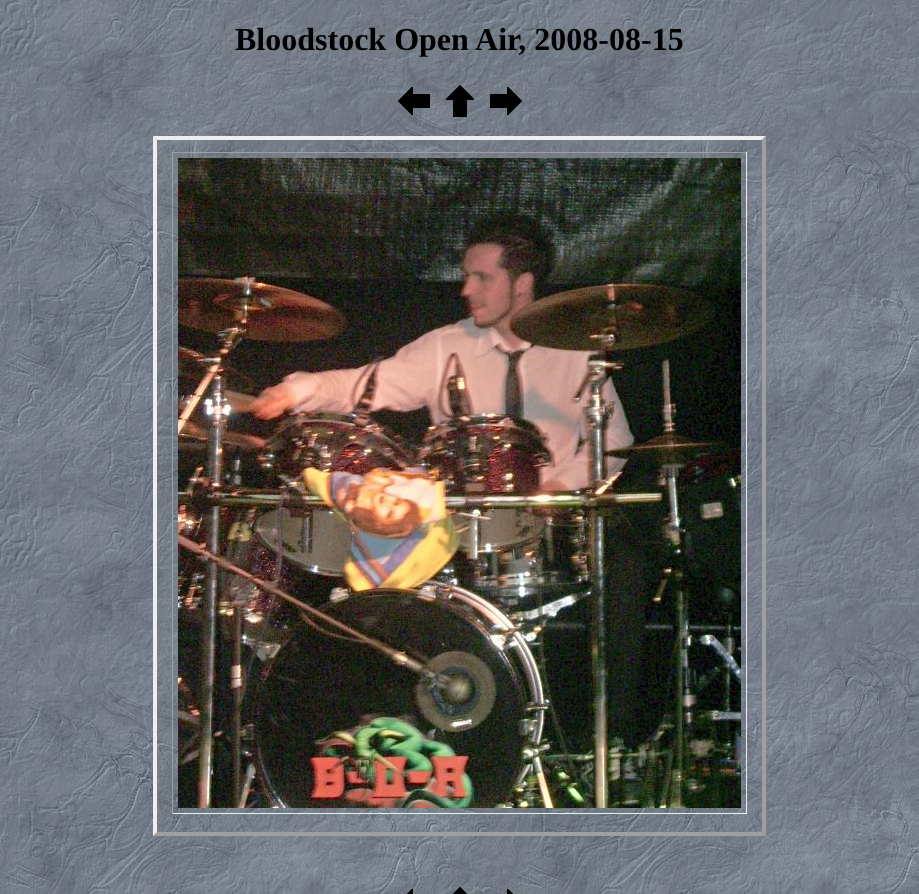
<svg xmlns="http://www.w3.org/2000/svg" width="919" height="894">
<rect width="100%" height="100%" fill="#fff"/>
<image x="0" y="0" width="919" height="894" href="media/1.png"/>
<text x="235" y="50" style="font-family:Liberation Serif;font-size:32px;font-weight:bold;fill:#000">Bloodstock Open Air, 2008-08-15</text>
<image x="398" y="87" width="32" height="28" href="media/2.png"/>
<image x="446" y="85" width="28" height="32" href="media/3.png"/>
<image x="490" y="87" width="32" height="28" href="media/4.png"/>
<path d="M153 136h613l-4 4h-605z" fill="#eee"/>
<path d="M766 136v700l-4-4v-692z" fill="#9f9f9f"/>
<path d="M766 836h-613l4-4h605z" fill="#9f9f9f"/>
<path d="M153 836v-700l4 4v692z" fill="#eee"/>
<rect x="172" y="152" width="575" height="1" fill="#9f9f9f"/>
<rect x="746" y="152" width="1" height="662" fill="#eee"/>
<rect x="172" y="813" width="575" height="1" fill="#eee"/>
<rect x="172" y="152" width="1" height="662" fill="#9f9f9f"/>
<image x="178" y="158" width="563" height="650" href="media/5.png"/>
<image x="407" y="889" width="6" height="5" href="media/6.png"/>
<image x="453" y="887" width="14" height="7" href="media/7.png"/>
<image x="507" y="889" width="6" height="5" href="media/8.png"/>
</svg>
